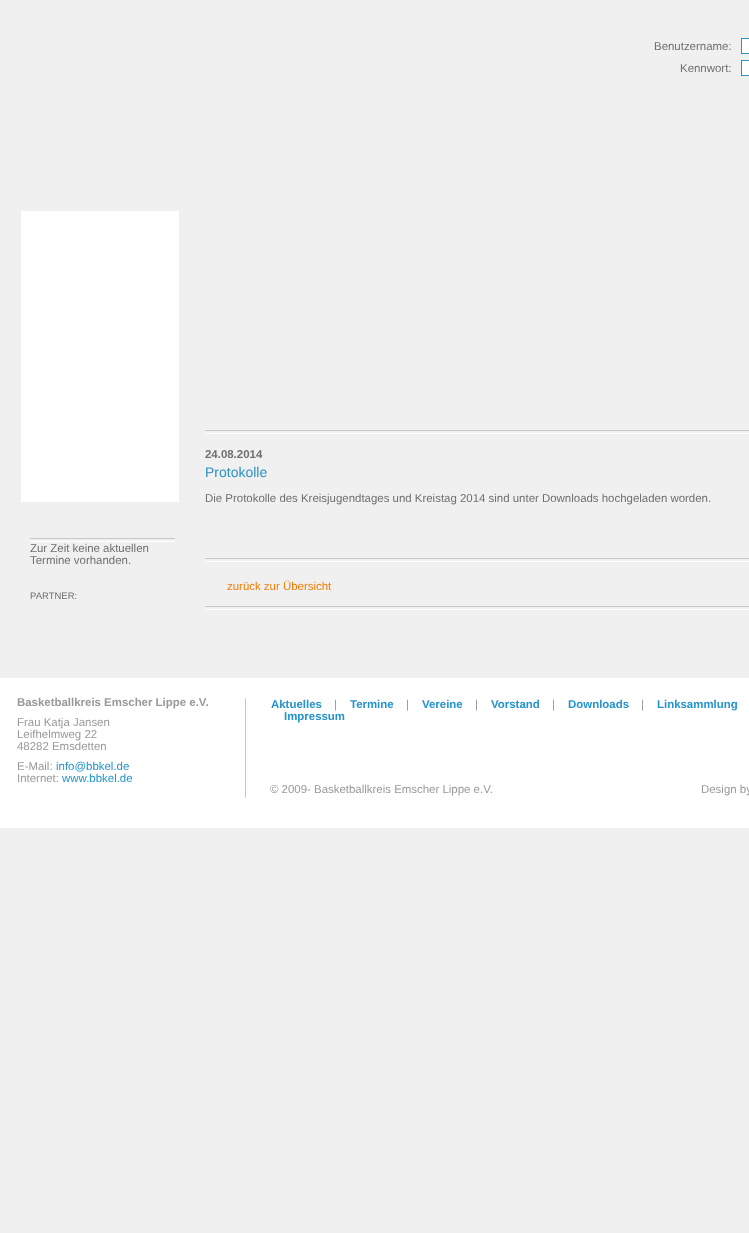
<svg xmlns="http://www.w3.org/2000/svg" width="749" height="1233">
<rect width="100%" height="100%" fill="#f0f0f0"/>
<text x="654" y="50" style="font-family:Liberation Sans;font-size:11.45px;fill:#716f6e">Benutzername:</text>
<rect x="741.5" y="38.5" width="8" height="15" fill="#fff" stroke="#2d93c3"/>
<text x="680" y="72" style="font-family:Liberation Sans;font-size:11.45px;fill:#716f6e">Kennwort:</text>
<rect x="741.5" y="60.5" width="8" height="15" fill="#fff" stroke="#2d93c3"/>
<rect x="21" y="211" width="158" height="291" fill="#fff"/>
<rect x="30" y="538" width="145" height="1" fill="#c6c7c9"/>
<rect x="30" y="541" width="145" height="1" fill="#fff"/>
<text x="30" y="552" style="font-family:Liberation Sans;font-size:11.45px;fill:#716f6e">Zur Zeit keine aktuellen</text>
<text x="30" y="564" style="font-family:Liberation Sans;font-size:11.45px;fill:#716f6e">Termine vorhanden.</text>
<text x="30" y="599" style="font-family:Liberation Sans;font-size:9.5px;fill:#716f6e">PARTNER:</text>
<rect x="205" y="430" width="544" height="1" fill="#c6c7c9"/>
<rect x="205" y="433" width="544" height="1" fill="#fff"/>
<text x="205" y="458" style="font-family:Liberation Sans;font-size:11.45px;font-weight:bold;fill:#716f6e">24.08.2014</text>
<text x="205" y="477" style="font-family:Liberation Sans;font-size:14px;fill:#2d93c3">Protokolle</text>
<text x="205" y="502" style="font-family:Liberation Sans;font-size:11.45px;fill:#716f6e">Die Protokolle des Kreisjugendtages und Kreistag 2014 sind unter Downloads hochgeladen worden.</text>
<rect x="205" y="558" width="544" height="1" fill="#c6c7c9"/>
<rect x="205" y="561" width="544" height="1" fill="#fff"/>
<text x="227" y="590" style="font-family:Liberation Sans;font-size:11.45px;fill:#ef7e08">zurück zur Übersicht</text>
<rect x="205" y="606" width="544" height="1" fill="#c6c7c9"/>
<rect x="205" y="609" width="544" height="1" fill="#fff"/>
<rect y="678" width="749" height="150" fill="#fff"/>
<text x="17" y="706" style="font-family:Liberation Sans;font-size:11.45px;font-weight:bold;fill:#999">Basketballkreis Emscher Lippe e.V.</text>
<text x="17" y="726" style="font-family:Liberation Sans;font-size:11.45px;fill:#999">Frau Katja Jansen</text>
<text x="17" y="738" style="font-family:Liberation Sans;font-size:11.45px;fill:#999">Leifhelmweg 22</text>
<text x="17" y="750" style="font-family:Liberation Sans;font-size:11.45px;fill:#999">48282 Emsdetten</text>
<text x="17" y="770" style="font-family:Liberation Sans;font-size:11.45px;fill:#999">E-Mail:</text>
<text x="56" y="770" style="font-family:Liberation Sans;font-size:11.45px;fill:#2494cc">info@bbkel.de</text>
<text x="17" y="782" style="font-family:Liberation Sans;font-size:11.45px;fill:#999">Internet:</text>
<text x="62" y="782" style="font-family:Liberation Sans;font-size:11.45px;fill:#2494cc">www.bbkel.de</text>
<rect x="245" y="698" width="1" height="100" fill="#c6c7c9"/>
<text x="271" y="708" style="font-family:Liberation Sans;font-size:11.45px;font-weight:bold;fill:#2494cc">Aktuelles</text>
<text x="334" y="708" style="font-family:Liberation Sans;font-size:11.45px;fill:#999">|</text>
<text x="350" y="708" style="font-family:Liberation Sans;font-size:11.45px;font-weight:bold;fill:#2494cc">Termine</text>
<text x="406" y="708" style="font-family:Liberation Sans;font-size:11.45px;fill:#999">|</text>
<text x="422" y="708" style="font-family:Liberation Sans;font-size:11.45px;font-weight:bold;fill:#2494cc">Vereine</text>
<text x="475" y="708" style="font-family:Liberation Sans;font-size:11.45px;fill:#999">|</text>
<text x="491" y="708" style="font-family:Liberation Sans;font-size:11.45px;font-weight:bold;fill:#2494cc">Vorstand</text>
<text x="552" y="708" style="font-family:Liberation Sans;font-size:11.45px;fill:#999">|</text>
<text x="568" y="708" style="font-family:Liberation Sans;font-size:11.45px;font-weight:bold;fill:#2494cc">Downloads</text>
<text x="641" y="708" style="font-family:Liberation Sans;font-size:11.45px;fill:#999">|</text>
<text x="657" y="708" style="font-family:Liberation Sans;font-size:11.45px;font-weight:bold;fill:#2494cc">Linksammlung</text>
<text x="284" y="720" style="font-family:Liberation Sans;font-size:11.45px;font-weight:bold;fill:#2494cc">Impressum</text>
<text x="270" y="793" style="font-family:Liberation Sans;font-size:11.45px;fill:#999">© 2009- Basketballkreis Emscher Lippe e.V.</text>
<text x="701" y="793" style="font-family:Liberation Sans;font-size:11.45px;fill:#999">Design by</text>
</svg>
